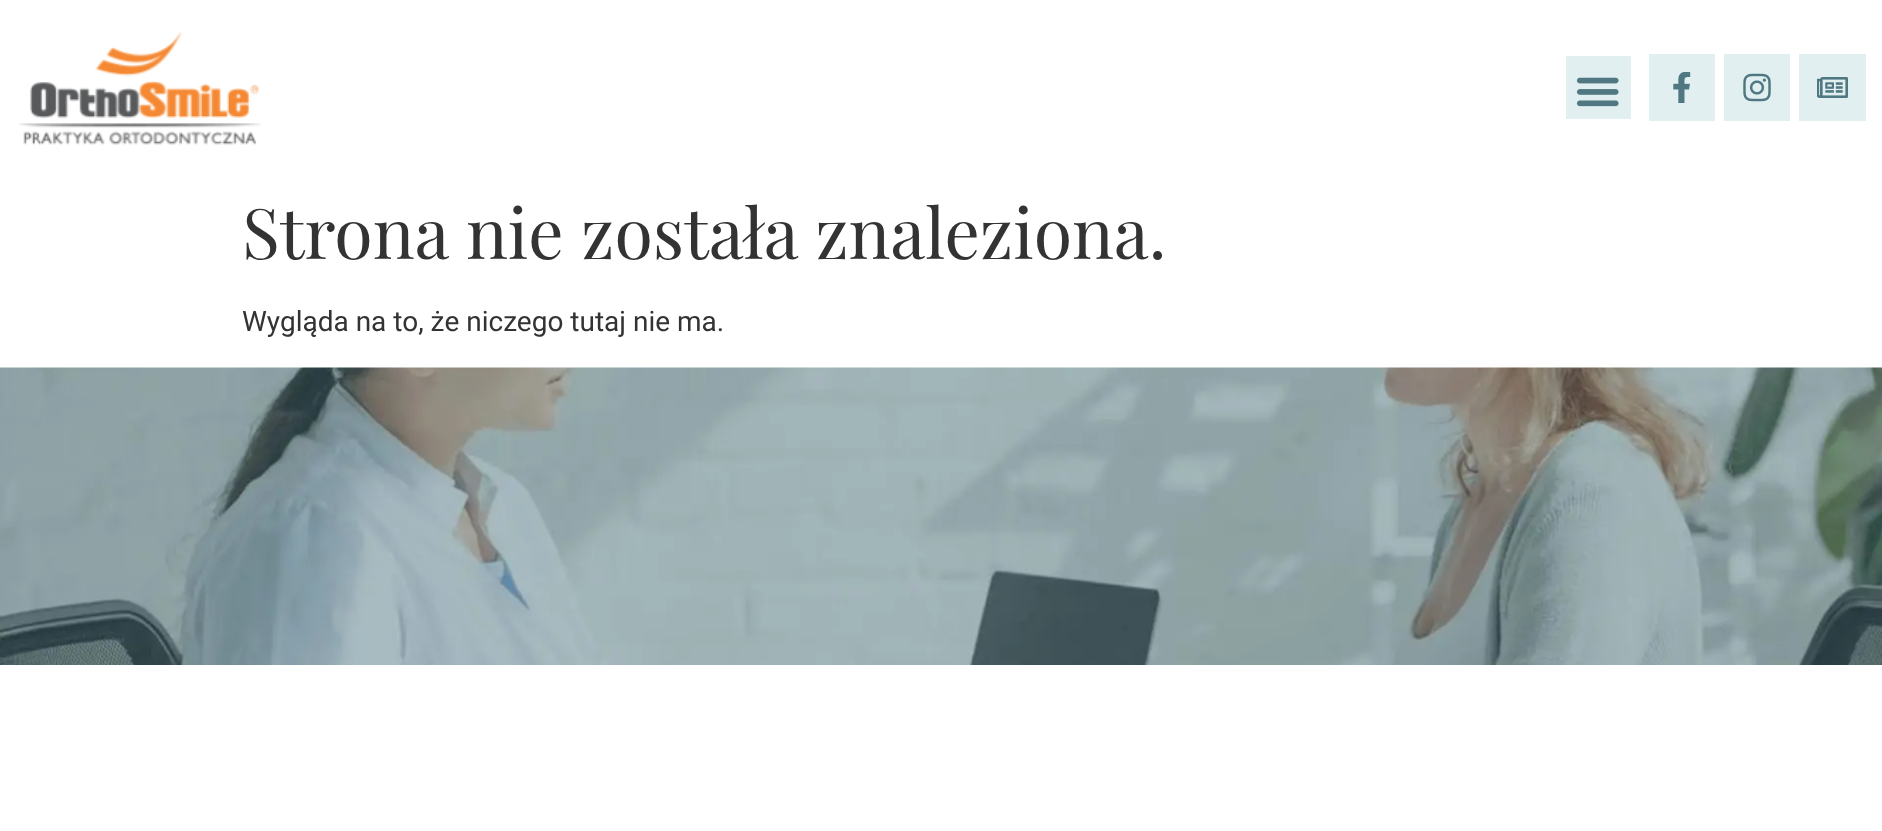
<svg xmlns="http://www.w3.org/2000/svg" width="1882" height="831">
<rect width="100%" height="100%" fill="#fff"/>
<image x="18" y="32" width="243" height="113" href="media/1.png"/>
<rect x="1566" y="56" width="65" height="63" fill="#e1eff0"/>
<image x="1576" y="77" width="43" height="30" href="media/2.png"/>
<rect x="1649" y="54" width="66" height="67" fill="#e1eff0"/>
<image x="1673" y="72" width="18" height="31" href="media/3.png"/>
<rect x="1724" y="54" width="66" height="67" fill="#e1eff0"/>
<image x="1743" y="73" width="28" height="29" href="media/4.png"/>
<rect x="1799" y="54" width="67" height="67" fill="#e1eff0"/>
<image x="1817" y="77" width="31" height="21" href="media/5.png"/>
<text x="242" y="259" style="font-family:Playfair Display;font-size:70px;fill:#333">Strona nie została znaleziona.</text>
<text x="242" y="331" style="font-family:Roboto;font-size:28px;fill:#333">Wygląda na to, że niczego tutaj nie ma.</text>
<image x="0" y="367" width="1882" height="298" href="media/6.png"/>
</svg>
